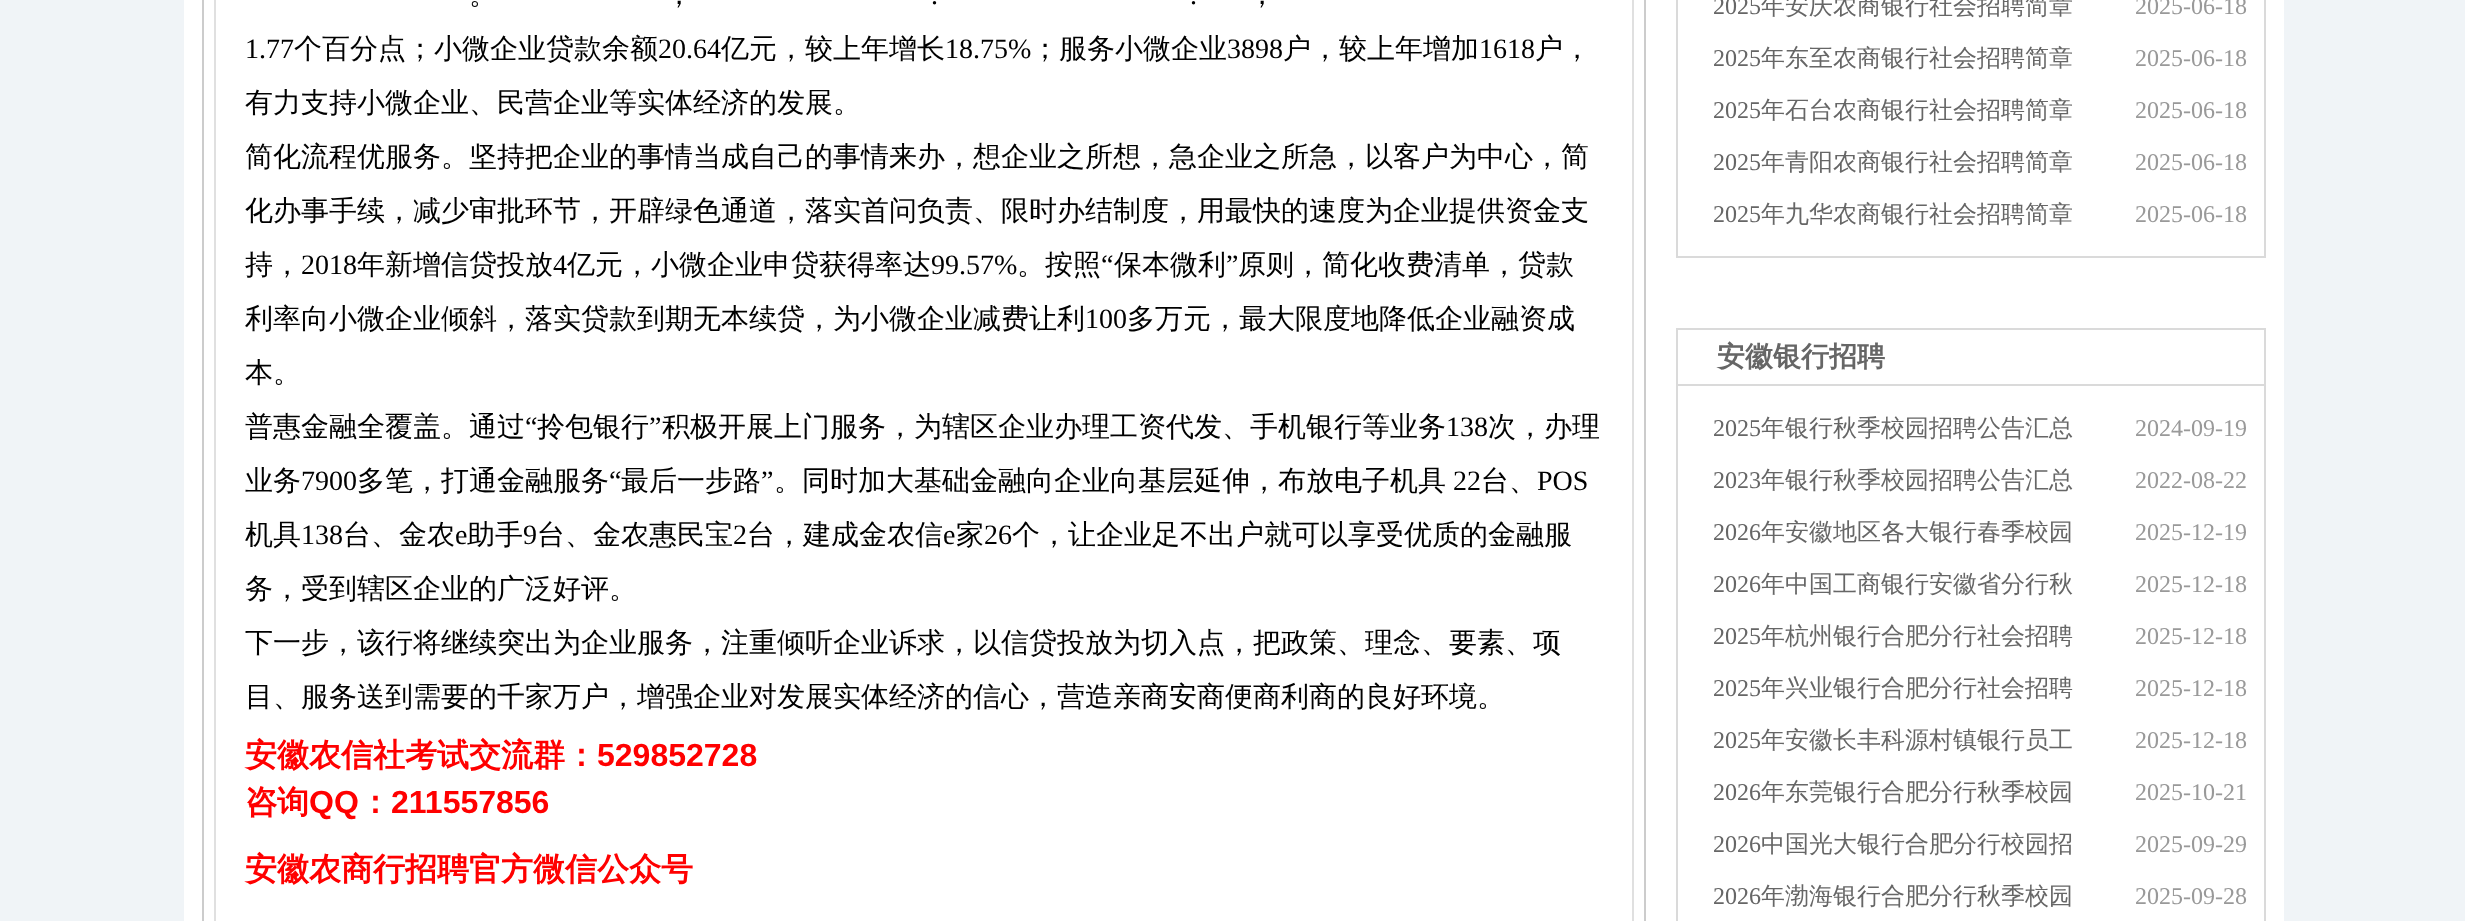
<svg xmlns="http://www.w3.org/2000/svg" width="2465" height="921">
<rect width="100%" height="100%" fill="#f0f4f7"/>
<rect x="184" width="2100" height="921" fill="#fff"/>
<rect x="203" y="-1" width="1442" height="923" fill="none" stroke="#ccc" stroke-width="2"/>
<rect x="215" y="-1" width="1418" height="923" fill="none" stroke="#e0e0e0" stroke-width="2"/>
<text x="469" y="4" style="font-family:WenQuanYi Zen Hei;font-size:28px;font-weight:500;fill:#000">。</text>
<text x="665" y="4" style="font-family:WenQuanYi Zen Hei;font-size:28px;font-weight:500;fill:#000">，</text>
<text x="931" y="4" style="font-family:Liberation Serif;font-size:28px;fill:#000">.</text>
<text x="1190" y="4" style="font-family:Liberation Serif;font-size:28px;fill:#000">.</text>
<text x="1248" y="4" style="font-family:WenQuanYi Zen Hei;font-size:28px;font-weight:500;fill:#000">，</text>
<text x="245" y="58" style="font-family:Liberation Serif;font-size:28px;fill:#000">1.77</text>
<text x="294" y="58" style="font-family:WenQuanYi Zen Hei;font-size:28px;font-weight:500;fill:#000">个百分点；小微企业贷款余额</text>
<text x="658" y="58" style="font-family:Liberation Serif;font-size:28px;fill:#000">20.64</text>
<text x="721" y="58" style="font-family:WenQuanYi Zen Hei;font-size:28px;font-weight:500;fill:#000">亿元，较上年增长</text>
<text x="945" y="58" style="font-family:Liberation Serif;font-size:28px;fill:#000">18.75%</text>
<text x="1031" y="58" style="font-family:WenQuanYi Zen Hei;font-size:28px;font-weight:500;fill:#000">；服务小微企业</text>
<text x="1227" y="58" style="font-family:Liberation Serif;font-size:28px;fill:#000">3898</text>
<text x="1283" y="58" style="font-family:WenQuanYi Zen Hei;font-size:28px;font-weight:500;fill:#000">户，较上年增加</text>
<text x="1479" y="58" style="font-family:Liberation Serif;font-size:28px;fill:#000">1618</text>
<text x="1535" y="58" style="font-family:WenQuanYi Zen Hei;font-size:28px;font-weight:500;fill:#000">户，</text>
<text x="245" y="112" style="font-family:WenQuanYi Zen Hei;font-size:28px;font-weight:500;fill:#000">有力支持小微企业、民营企业等实体经济的发展。</text>
<text x="245" y="166" style="font-family:WenQuanYi Zen Hei;font-size:28px;font-weight:500;fill:#000">简化流程优服务。坚持把企业的事情当成自己的事情来办，想企业之所想，急企业之所急，以客户为中心，简</text>
<text x="245" y="220" style="font-family:WenQuanYi Zen Hei;font-size:28px;font-weight:500;fill:#000">化办事手续，减少审批环节，开辟绿色通道，落实首问负责、限时办结制度，用最快的速度为企业提供资金支</text>
<text x="245" y="274" style="font-family:WenQuanYi Zen Hei;font-size:28px;font-weight:500;fill:#000">持，</text>
<text x="301" y="274" style="font-family:Liberation Serif;font-size:28px;fill:#000">2018</text>
<text x="357" y="274" style="font-family:WenQuanYi Zen Hei;font-size:28px;font-weight:500;fill:#000">年新增信贷投放</text>
<text x="553" y="274" style="font-family:Liberation Serif;font-size:28px;fill:#000">4</text>
<text x="567" y="274" style="font-family:WenQuanYi Zen Hei;font-size:28px;font-weight:500;fill:#000">亿元，小微企业申贷获得率达</text>
<text x="931" y="274" style="font-family:Liberation Serif;font-size:28px;fill:#000">99.57%</text>
<text x="1017" y="274" style="font-family:WenQuanYi Zen Hei;font-size:28px;font-weight:500;fill:#000">。按照</text>
<text x="1101" y="274" style="font-family:Liberation Serif;font-size:28px;fill:#000">“</text>
<text x="1114" y="274" style="font-family:WenQuanYi Zen Hei;font-size:28px;font-weight:500;fill:#000">保本微利</text>
<text x="1226" y="274" style="font-family:Liberation Serif;font-size:28px;fill:#000">”</text>
<text x="1238" y="274" style="font-family:WenQuanYi Zen Hei;font-size:28px;font-weight:500;fill:#000">原则，简化收费清单，贷款</text>
<text x="245" y="328" style="font-family:WenQuanYi Zen Hei;font-size:28px;font-weight:500;fill:#000">利率向小微企业倾斜，落实贷款到期无本续贷，为小微企业减费让利</text>
<text x="1085" y="328" style="font-family:Liberation Serif;font-size:28px;fill:#000">100</text>
<text x="1127" y="328" style="font-family:WenQuanYi Zen Hei;font-size:28px;font-weight:500;fill:#000">多万元，最大限度地降低企业融资成</text>
<text x="245" y="382" style="font-family:WenQuanYi Zen Hei;font-size:28px;font-weight:500;fill:#000">本。</text>
<text x="245" y="436" style="font-family:WenQuanYi Zen Hei;font-size:28px;font-weight:500;fill:#000">普惠金融全覆盖。通过</text>
<text x="525" y="436" style="font-family:Liberation Serif;font-size:28px;fill:#000">“</text>
<text x="537" y="436" style="font-family:WenQuanYi Zen Hei;font-size:28px;font-weight:500;fill:#000">拎包银行</text>
<text x="649" y="436" style="font-family:Liberation Serif;font-size:28px;fill:#000">”</text>
<text x="662" y="436" style="font-family:WenQuanYi Zen Hei;font-size:28px;font-weight:500;fill:#000">积极开展上门服务，为辖区企业办理工资代发、手机银行等业务</text>
<text x="1446" y="436" style="font-family:Liberation Serif;font-size:28px;fill:#000">138</text>
<text x="1488" y="436" style="font-family:WenQuanYi Zen Hei;font-size:28px;font-weight:500;fill:#000">次，办理</text>
<text x="245" y="490" style="font-family:WenQuanYi Zen Hei;font-size:28px;font-weight:500;fill:#000">业务</text>
<text x="301" y="490" style="font-family:Liberation Serif;font-size:28px;fill:#000">7900</text>
<text x="357" y="490" style="font-family:WenQuanYi Zen Hei;font-size:28px;font-weight:500;fill:#000">多笔，打通金融服务</text>
<text x="609" y="490" style="font-family:Liberation Serif;font-size:28px;fill:#000">“</text>
<text x="621" y="490" style="font-family:WenQuanYi Zen Hei;font-size:28px;font-weight:500;fill:#000">最后一步路</text>
<text x="761" y="490" style="font-family:Liberation Serif;font-size:28px;fill:#000">”</text>
<text x="774" y="490" style="font-family:WenQuanYi Zen Hei;font-size:28px;font-weight:500;fill:#000">。同时加大基础金融向企业向基层延伸，布放电子机具</text>
<text x="1453" y="490" style="font-family:Liberation Serif;font-size:28px;fill:#000">22</text>
<text x="1481" y="490" style="font-family:WenQuanYi Zen Hei;font-size:28px;font-weight:500;fill:#000">台、</text>
<text x="1537" y="490" style="font-family:Liberation Serif;font-size:28px;fill:#000">POS</text>
<text x="245" y="544" style="font-family:WenQuanYi Zen Hei;font-size:28px;font-weight:500;fill:#000">机具</text>
<text x="301" y="544" style="font-family:Liberation Serif;font-size:28px;fill:#000">138</text>
<text x="343" y="544" style="font-family:WenQuanYi Zen Hei;font-size:28px;font-weight:500;fill:#000">台、金农</text>
<text x="455" y="544" style="font-family:Liberation Serif;font-size:28px;fill:#000">e</text>
<text x="467" y="544" style="font-family:WenQuanYi Zen Hei;font-size:28px;font-weight:500;fill:#000">助手</text>
<text x="523" y="544" style="font-family:Liberation Serif;font-size:28px;fill:#000">9</text>
<text x="537" y="544" style="font-family:WenQuanYi Zen Hei;font-size:28px;font-weight:500;fill:#000">台、金农惠民宝</text>
<text x="733" y="544" style="font-family:Liberation Serif;font-size:28px;fill:#000">2</text>
<text x="747" y="544" style="font-family:WenQuanYi Zen Hei;font-size:28px;font-weight:500;fill:#000">台，建成金农信</text>
<text x="943" y="544" style="font-family:Liberation Serif;font-size:28px;fill:#000">e</text>
<text x="956" y="544" style="font-family:WenQuanYi Zen Hei;font-size:28px;font-weight:500;fill:#000">家</text>
<text x="984" y="544" style="font-family:Liberation Serif;font-size:28px;fill:#000">26</text>
<text x="1012" y="544" style="font-family:WenQuanYi Zen Hei;font-size:28px;font-weight:500;fill:#000">个，让企业足不出户就可以享受优质的金融服</text>
<text x="245" y="598" style="font-family:WenQuanYi Zen Hei;font-size:28px;font-weight:500;fill:#000">务，受到辖区企业的广泛好评。</text>
<text x="245" y="652" style="font-family:WenQuanYi Zen Hei;font-size:28px;font-weight:500;fill:#000">下一步，该行将继续突出为企业服务，注重倾听企业诉求，以信贷投放为切入点，把政策、理念、要素、项</text>
<text x="245" y="706" style="font-family:WenQuanYi Zen Hei;font-size:28px;font-weight:500;fill:#000">目、服务送到需要的千家万户，增强企业对发展实体经济的信心，营造亲商安商便商利商的良好环境。</text>
<text x="245" y="766" style="font-family:WenQuanYi Zen Hei;font-size:32px;font-weight:bold;fill:#f00">安徽农信社考试交流群：</text>
<text x="597" y="766" style="font-family:Liberation Sans;font-size:32px;font-weight:bold;fill:#f00">529852728</text>
<text x="245" y="813" style="font-family:WenQuanYi Zen Hei;font-size:32px;font-weight:bold;fill:#f00">咨询</text>
<text x="309" y="813" style="font-family:Liberation Sans;font-size:32px;font-weight:bold;fill:#f00">QQ</text>
<text x="359" y="813" style="font-family:WenQuanYi Zen Hei;font-size:32px;font-weight:bold;fill:#f00">：</text>
<text x="391" y="813" style="font-family:Liberation Sans;font-size:32px;font-weight:bold;fill:#f00">211557856</text>
<text x="245" y="880" style="font-family:WenQuanYi Zen Hei;font-size:32px;font-weight:bold;fill:#f00">安徽农商行招聘官方微信公众号</text>
<rect x="1677" y="-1" width="588" height="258" fill="none" stroke="#dadada" stroke-width="2"/>
<text x="1713" y="14" style="font-family:Liberation Serif;font-size:24px;fill:#666">2025</text>
<text x="1761" y="14" style="font-family:WenQuanYi Zen Hei;font-size:24px;font-weight:500;fill:#666">年安庆农商银行社会招聘简章</text>
<text x="2135" y="14" style="font-family:Liberation Serif;font-size:24px;fill:#999">2025-06-18</text>
<text x="1713" y="66" style="font-family:Liberation Serif;font-size:24px;fill:#666">2025</text>
<text x="1761" y="66" style="font-family:WenQuanYi Zen Hei;font-size:24px;font-weight:500;fill:#666">年东至农商银行社会招聘简章</text>
<text x="2135" y="66" style="font-family:Liberation Serif;font-size:24px;fill:#999">2025-06-18</text>
<text x="1713" y="118" style="font-family:Liberation Serif;font-size:24px;fill:#666">2025</text>
<text x="1761" y="118" style="font-family:WenQuanYi Zen Hei;font-size:24px;font-weight:500;fill:#666">年石台农商银行社会招聘简章</text>
<text x="2135" y="118" style="font-family:Liberation Serif;font-size:24px;fill:#999">2025-06-18</text>
<text x="1713" y="170" style="font-family:Liberation Serif;font-size:24px;fill:#666">2025</text>
<text x="1761" y="170" style="font-family:WenQuanYi Zen Hei;font-size:24px;font-weight:500;fill:#666">年青阳农商银行社会招聘简章</text>
<text x="2135" y="170" style="font-family:Liberation Serif;font-size:24px;fill:#999">2025-06-18</text>
<text x="1713" y="222" style="font-family:Liberation Serif;font-size:24px;fill:#666">2025</text>
<text x="1761" y="222" style="font-family:WenQuanYi Zen Hei;font-size:24px;font-weight:500;fill:#666">年九华农商银行社会招聘简章</text>
<text x="2135" y="222" style="font-family:Liberation Serif;font-size:24px;fill:#999">2025-06-18</text>
<rect x="1677" y="329" width="588" height="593" fill="none" stroke="#dadada" stroke-width="2"/>
<rect x="1678" y="384" width="586" height="2" fill="#dadada"/>
<text x="1717" y="366" style="font-family:WenQuanYi Zen Hei;font-size:28px;font-weight:bold;fill:#666">安徽银行招聘</text>
<text x="1713" y="436" style="font-family:Liberation Serif;font-size:24px;fill:#666">2025</text>
<text x="1761" y="436" style="font-family:WenQuanYi Zen Hei;font-size:24px;font-weight:500;fill:#666">年银行秋季校园招聘公告汇总</text>
<text x="2135" y="436" style="font-family:Liberation Serif;font-size:24px;fill:#999">2024-09-19</text>
<text x="1713" y="488" style="font-family:Liberation Serif;font-size:24px;fill:#666">2023</text>
<text x="1761" y="488" style="font-family:WenQuanYi Zen Hei;font-size:24px;font-weight:500;fill:#666">年银行秋季校园招聘公告汇总</text>
<text x="2135" y="488" style="font-family:Liberation Serif;font-size:24px;fill:#999">2022-08-22</text>
<text x="1713" y="540" style="font-family:Liberation Serif;font-size:24px;fill:#666">2026</text>
<text x="1761" y="540" style="font-family:WenQuanYi Zen Hei;font-size:24px;font-weight:500;fill:#666">年安徽地区各大银行春季校园</text>
<text x="2135" y="540" style="font-family:Liberation Serif;font-size:24px;fill:#999">2025-12-19</text>
<text x="1713" y="592" style="font-family:Liberation Serif;font-size:24px;fill:#666">2026</text>
<text x="1761" y="592" style="font-family:WenQuanYi Zen Hei;font-size:24px;font-weight:500;fill:#666">年中国工商银行安徽省分行秋</text>
<text x="2135" y="592" style="font-family:Liberation Serif;font-size:24px;fill:#999">2025-12-18</text>
<text x="1713" y="644" style="font-family:Liberation Serif;font-size:24px;fill:#666">2025</text>
<text x="1761" y="644" style="font-family:WenQuanYi Zen Hei;font-size:24px;font-weight:500;fill:#666">年杭州银行合肥分行社会招聘</text>
<text x="2135" y="644" style="font-family:Liberation Serif;font-size:24px;fill:#999">2025-12-18</text>
<text x="1713" y="696" style="font-family:Liberation Serif;font-size:24px;fill:#666">2025</text>
<text x="1761" y="696" style="font-family:WenQuanYi Zen Hei;font-size:24px;font-weight:500;fill:#666">年兴业银行合肥分行社会招聘</text>
<text x="2135" y="696" style="font-family:Liberation Serif;font-size:24px;fill:#999">2025-12-18</text>
<text x="1713" y="748" style="font-family:Liberation Serif;font-size:24px;fill:#666">2025</text>
<text x="1761" y="748" style="font-family:WenQuanYi Zen Hei;font-size:24px;font-weight:500;fill:#666">年安徽长丰科源村镇银行员工</text>
<text x="2135" y="748" style="font-family:Liberation Serif;font-size:24px;fill:#999">2025-12-18</text>
<text x="1713" y="800" style="font-family:Liberation Serif;font-size:24px;fill:#666">2026</text>
<text x="1761" y="800" style="font-family:WenQuanYi Zen Hei;font-size:24px;font-weight:500;fill:#666">年东莞银行合肥分行秋季校园</text>
<text x="2135" y="800" style="font-family:Liberation Serif;font-size:24px;fill:#999">2025-10-21</text>
<text x="1713" y="852" style="font-family:Liberation Serif;font-size:24px;fill:#666">2026</text>
<text x="1761" y="852" style="font-family:WenQuanYi Zen Hei;font-size:24px;font-weight:500;fill:#666">中国光大银行合肥分行校园招</text>
<text x="2135" y="852" style="font-family:Liberation Serif;font-size:24px;fill:#999">2025-09-29</text>
<text x="1713" y="904" style="font-family:Liberation Serif;font-size:24px;fill:#666">2026</text>
<text x="1761" y="904" style="font-family:WenQuanYi Zen Hei;font-size:24px;font-weight:500;fill:#666">年渤海银行合肥分行秋季校园</text>
<text x="2135" y="904" style="font-family:Liberation Serif;font-size:24px;fill:#999">2025-09-28</text>
</svg>
